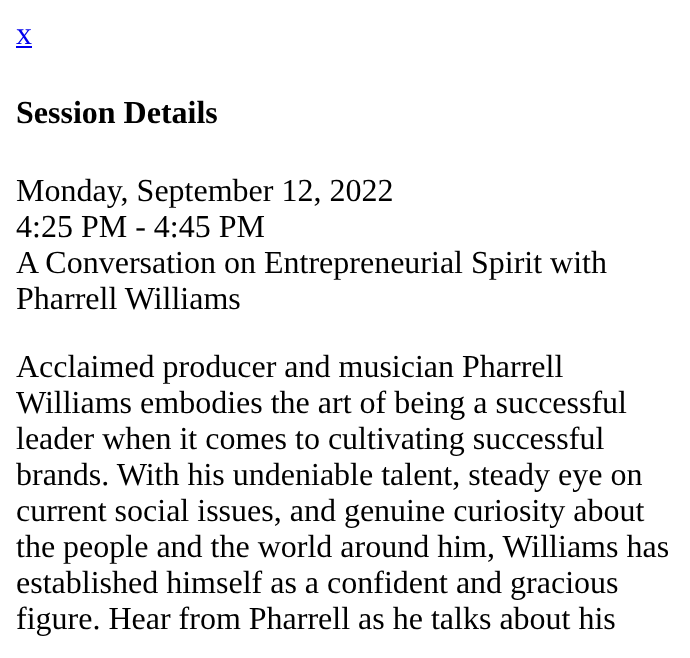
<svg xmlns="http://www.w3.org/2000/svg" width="690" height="658">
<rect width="100%" height="100%" fill="#fff"/>
<text x="16" y="44" style="font-family:Liberation Serif;font-size:32px;fill:#00e">x</text>
<rect x="16" y="46" width="16" height="2" fill="#00e"/>
<text x="16" y="123" style="font-family:Liberation Serif;font-size:32px;font-weight:bold;fill:#000">Session Details</text>
<text x="16" y="201" style="font-family:Liberation Serif;font-size:32px;fill:#000">Monday, September 12, 2022</text>
<text x="16" y="237" style="font-family:Liberation Serif;font-size:32px;fill:#000">4:25 PM - 4:45 PM</text>
<text x="16" y="273" style="font-family:Liberation Serif;font-size:32px;fill:#000">A Conversation on Entrepreneurial Spirit with</text>
<text x="16" y="309" style="font-family:Liberation Serif;font-size:32px;fill:#000">Pharrell Williams</text>
<text x="16" y="377" style="font-family:Liberation Serif;font-size:32px;fill:#000">Acclaimed producer and musician Pharrell</text>
<text x="16" y="413" style="font-family:Liberation Serif;font-size:32px;fill:#000">Williams embodies the art of being a successful</text>
<text x="16" y="449" style="font-family:Liberation Serif;font-size:32px;fill:#000">leader when it comes to cultivating successful</text>
<text x="16" y="485" style="font-family:Liberation Serif;font-size:32px;fill:#000">brands. With his undeniable talent, steady eye on</text>
<text x="16" y="521" style="font-family:Liberation Serif;font-size:32px;fill:#000">current social issues, and genuine curiosity about</text>
<text x="16" y="557" style="font-family:Liberation Serif;font-size:32px;fill:#000">the people and the world around him, Williams has</text>
<text x="16" y="593" style="font-family:Liberation Serif;font-size:32px;fill:#000">established himself as a confident and gracious</text>
<text x="16" y="629" style="font-family:Liberation Serif;font-size:32px;fill:#000">figure. Hear from Pharrell as he talks about his</text>
</svg>
